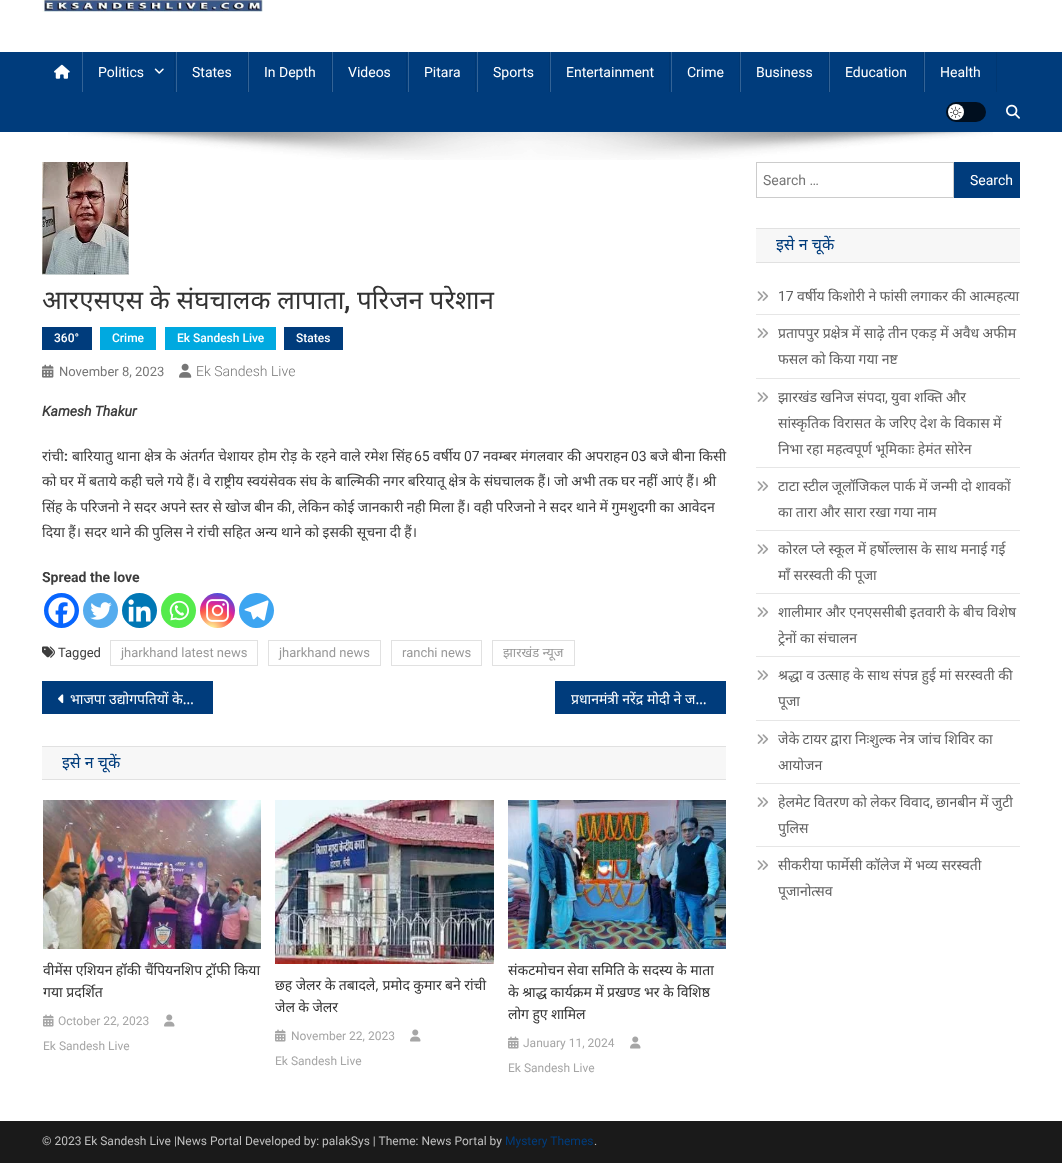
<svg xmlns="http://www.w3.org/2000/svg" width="1062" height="1163">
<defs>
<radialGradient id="g1" gradientUnits="userSpaceOnUse" cx="211" cy="630" r="45"><stop offset="0" stop-color="#fdf497"/><stop offset="0.05" stop-color="#fdf497"/><stop offset="0.45" stop-color="#fd5949"/><stop offset="0.6" stop-color="#d6249f"/><stop offset="0.9" stop-color="#285aeb"/></radialGradient>
</defs>
<rect width="100%" height="100%" fill="#fff"/>
<image x="42" y="0" width="221" height="12" href="media/1.png"/>
<rect y="52" width="1062" height="80" fill="#003c7c"/>
<image x="54" y="64" width="16" height="15" href="media/2.png"/>
<rect x="174" y="52" width="1" height="40" fill="#003772"/>
<rect x="82" y="52" width="1" height="40" fill="#336396"/>
<text x="98" y="77" style="font-family:Roboto;font-size:14px;fill:#fff">Politics</text>
<image x="154" y="68" width="10" height="6" href="media/3.png"/>
<rect x="247" y="52" width="1" height="40" fill="#003772"/>
<rect x="176" y="52" width="1" height="40" fill="#336396"/>
<text x="192" y="77" style="font-family:Roboto;font-size:14px;fill:#fff">States</text>
<rect x="331" y="52" width="1" height="40" fill="#003772"/>
<rect x="248" y="52" width="1" height="40" fill="#336396"/>
<text x="264" y="77" style="font-family:Roboto;font-size:14px;fill:#fff">In Depth</text>
<rect x="406" y="52" width="1" height="40" fill="#003772"/>
<rect x="332" y="52" width="1" height="40" fill="#336396"/>
<text x="348" y="77" style="font-family:Roboto;font-size:14px;fill:#fff">Videos</text>
<rect x="475" y="52" width="1" height="40" fill="#003772"/>
<rect x="408" y="52" width="1" height="40" fill="#336396"/>
<text x="424" y="77" style="font-family:Roboto;font-size:14px;fill:#fff">Pitara</text>
<rect x="549" y="52" width="1" height="40" fill="#003772"/>
<rect x="477" y="52" width="1" height="40" fill="#336396"/>
<text x="493" y="77" style="font-family:Roboto;font-size:14px;fill:#fff">Sports</text>
<rect x="669" y="52" width="1" height="40" fill="#003772"/>
<rect x="550" y="52" width="1" height="40" fill="#336396"/>
<text x="566" y="77" style="font-family:Roboto;font-size:14px;fill:#fff">Entertainment</text>
<rect x="739" y="52" width="1" height="40" fill="#003772"/>
<rect x="671" y="52" width="1" height="40" fill="#336396"/>
<text x="687" y="77" style="font-family:Roboto;font-size:14px;fill:#fff">Crime</text>
<rect x="828" y="52" width="1" height="40" fill="#003772"/>
<rect x="740" y="52" width="1" height="40" fill="#336396"/>
<text x="756" y="77" style="font-family:Roboto;font-size:14px;fill:#fff">Business</text>
<rect x="923" y="52" width="1" height="40" fill="#003772"/>
<rect x="829" y="52" width="1" height="40" fill="#336396"/>
<text x="845" y="77" style="font-family:Roboto;font-size:14px;fill:#fff">Education</text>
<rect x="996" y="52" width="1" height="40" fill="#003772"/>
<rect x="924" y="52" width="1" height="40" fill="#336396"/>
<text x="940" y="77" style="font-family:Roboto;font-size:14px;fill:#fff">Health</text>
<rect x="946" y="102" width="40" height="20" rx="10" fill="#000f1f"/>
<circle cx="956" cy="112" r="8" fill="#fff"/>
<image x="950" y="106" width="12" height="12" href="media/4.png"/>
<image x="1006" y="104" width="14" height="15" href="media/5.png"/>
<image x="68" y="132" width="925" height="28" href="media/6.png"/>
<image x="42" y="162" width="87" height="113" href="media/7.png"/>
<text x="42" y="309" style="font-family:Noto Sans;font-size:26px;fill:#333">आरएसएस के संघचालक लापाता</text>
<text x="344" y="309" style="font-family:Roboto;font-size:26px;font-weight:bold;fill:#333">,</text>
<text x="357" y="309" style="font-family:Noto Sans;font-size:26px;fill:#333">परिजन परेशान</text>
<rect x="42" y="327" width="50" height="23" fill="#003c7c"/>
<text x="54" y="342" style="font-family:Roboto;font-size:12px;font-weight:500;fill:#fff">360°</text>
<rect x="100" y="327" width="56" height="23" fill="#00a9e0"/>
<text x="112" y="342" style="font-family:Roboto;font-size:12px;font-weight:500;fill:#fff">Crime</text>
<rect x="165" y="327" width="111" height="23" fill="#00a9e0"/>
<text x="177" y="342" style="font-family:Roboto;font-size:12px;font-weight:500;fill:#fff">Ek Sandesh Live</text>
<rect x="284" y="327" width="59" height="23" fill="#003c7c"/>
<text x="296" y="342" style="font-family:Roboto;font-size:12px;font-weight:500;fill:#fff">States</text>
<image x="42" y="364" width="12" height="14" href="media/8.png"/>
<text x="59" y="376" style="font-family:Roboto;font-size:13px;fill:#767676">November 8, 2023</text>
<image x="179" y="363" width="13" height="15" href="media/9.png"/>
<text x="196" y="376" style="font-family:Roboto;font-size:14px;font-weight:300;fill:#767676">Ek Sandesh Live</text>
<text x="42" y="416" style="font-family:Roboto;font-size:14px;font-weight:bold;font-style:italic;fill:#3d3d3d">Kamesh Thakur</text>
<text x="42" y="461" style="font-family:Noto Sans;font-size:14px;fill:#3d3d3d">रांची</text>
<text x="64" y="461" style="font-family:Roboto;font-size:14px;font-weight:bold;fill:#3d3d3d">:</text>
<text x="72" y="461" style="font-family:Noto Sans;font-size:14px;fill:#3d3d3d">बारियातु थाना क्षेत्र के अंतर्गत चेशायर होम रोड़ के रहने वाले रमेश सिंह</text>
<text x="414" y="461" style="font-family:Roboto;font-size:14px;fill:#3d3d3d">65</text>
<text x="433" y="461" style="font-family:Noto Sans;font-size:14px;fill:#3d3d3d">वर्षीय</text>
<text x="464" y="461" style="font-family:Roboto;font-size:14px;fill:#3d3d3d">07</text>
<text x="483" y="461" style="font-family:Noto Sans;font-size:14px;fill:#3d3d3d">नवम्बर मंगलवार की अपराहन</text>
<text x="631" y="461" style="font-family:Roboto;font-size:14px;fill:#3d3d3d">03</text>
<text x="650" y="461" style="font-family:Noto Sans;font-size:14px;fill:#3d3d3d">बजे बीना किसी</text>
<text x="42" y="486" word-spacing="-0.2" style="font-family:Noto Sans;font-size:14px;fill:#3d3d3d">को घर में बताये कही चले गये हैं। वे राष्ट्रीय स्वयंसेवक संघ के बाल्मिकी नगर बरियातू क्षेत्र के संघचालक हैं। जो अभी तक घर नहीं आएं हैं। श्री</text>
<text x="42" y="512" word-spacing="-0.2" style="font-family:Noto Sans;font-size:14px;fill:#3d3d3d">सिंह के परिजनो ने सदर अपने स्तर से खोज बीन की</text>
<text x="292" y="512" style="font-family:Roboto;font-size:14px;fill:#3d3d3d">,</text>
<text x="298" y="512" word-spacing="-0.2" style="font-family:Noto Sans;font-size:14px;fill:#3d3d3d">लेकिन कोई जानकारी नही मिला हैं। वही परिजनो ने सदर थाने में गुमशुदगी का आवेदन</text>
<text x="42" y="537" word-spacing="-0.2" style="font-family:Noto Sans;font-size:14px;fill:#3d3d3d">दिया हैं। सदर थाने की पुलिस ने रांची सहित अन्य थाने को इसकी सूचना दी हैं।</text>
<text x="42" y="582" style="font-family:Roboto;font-size:14px;font-weight:bold;fill:#3d3d3d">Spread the love</text>
<circle cx="61.5" cy="610.5" r="17.5" fill="#0765fe"/>
<image x="48" y="597" width="27" height="27" href="media/10.png"/>
<circle cx="100.5" cy="610.5" r="17.5" fill="#55acee"/>
<image x="90" y="602" width="22" height="18" href="media/11.png"/>
<circle cx="139.5" cy="610.5" r="17.5" fill="#0077b5"/>
<image x="128" y="599" width="23" height="23" href="media/12.png"/>
<circle cx="178.5" cy="610.5" r="17.5" fill="#55eb4c"/>
<image x="169" y="600" width="20" height="21" href="media/13.png"/>
<circle cx="217.5" cy="610.5" r="17.5" fill="url(#g1)"/>
<image x="206" y="599" width="23" height="23" href="media/14.png"/>
<circle cx="256.5" cy="610.5" r="17.5" fill="#3da5f1"/>
<image x="244" y="600" width="25" height="21" href="media/15.png"/>
<image x="42" y="646" width="13" height="12" href="media/16.png"/>
<text x="58" y="657" style="font-family:Roboto;font-size:13px;fill:#3d3d3d">Tagged</text>
<rect x="110.5" y="640.5" width="147" height="25" fill="none" stroke="#e1e1e1"/>
<text x="121" y="657" style="font-family:Roboto;font-size:13px;fill:#999">jharkhand latest news</text>
<rect x="268.5" y="640.5" width="112" height="25" fill="none" stroke="#e1e1e1"/>
<text x="279" y="657" style="font-family:Roboto;font-size:13px;fill:#999">jharkhand news</text>
<rect x="391.5" y="640.5" width="90" height="25" fill="none" stroke="#e1e1e1"/>
<text x="402" y="657" style="font-family:Roboto;font-size:13px;fill:#999">ranchi news</text>
<rect x="492.5" y="640.5" width="82" height="25" fill="none" stroke="#e1e1e1"/>
<text x="503" y="657" style="font-family:Noto Sans;font-size:13px;fill:#999">झारखंड न्यूज</text>
<rect x="42" y="681" width="171" height="33" fill="#003c7c"/>
<image x="58" y="694" width="6" height="10" href="media/17.png"/>
<text x="70" y="704" style="font-family:Noto Sans;font-size:14px;fill:#fff">भाजपा उद्योगपतियों के…</text>
<rect x="555" y="681" width="171" height="33" fill="#003c7c"/>
<text x="571" y="704" style="font-family:Noto Sans;font-size:14px;fill:#fff">प्रधानमंत्री नरेंद्र मोदी ने ज…</text>
<rect x="42" y="747" width="684" height="32" fill="#f7f7f7"/>
<rect x="42" y="746" width="684" height="1" fill="#e1e1e1"/>
<rect x="42" y="779" width="684" height="1" fill="#e1e1e1"/>
<text x="62" y="768" style="font-family:Noto Sans;font-size:16px;fill:#003c7c">इसे न चूकें</text>
<image x="43" y="800" width="218" height="149" href="media/18.png"/>
<text x="43" y="975" word-spacing="-0.25" style="font-family:Noto Sans;font-size:14px;fill:#333">वीमेंस एशियन हॉकी चैंपियनशिप ट्रॉफी किया</text>
<text x="43" y="997" style="font-family:Noto Sans;font-size:14px;fill:#333">गया प्रदर्शित</text>
<image x="43" y="1014" width="11" height="13" href="media/19.png"/>
<text x="58" y="1025" style="font-family:Roboto;font-size:12px;fill:#a6a6a6">October 22, 2023</text>
<image x="164" y="1014" width="11" height="13" href="media/20.png"/>
<text x="43" y="1050" style="font-family:Roboto;font-size:12px;fill:#a6a6a6">Ek Sandesh Live</text>
<image x="275" y="800" width="219" height="164" href="media/21.png"/>
<text x="275" y="990" word-spacing="-0.25" style="font-family:Noto Sans;font-size:14px;fill:#333">छह जेलर के तबादले, प्रमोद कुमार बने रांची</text>
<text x="275" y="1012" word-spacing="-0.25" style="font-family:Noto Sans;font-size:14px;fill:#333">जेल के जेलर</text>
<image x="275" y="1029" width="11" height="13" href="media/19.png"/>
<text x="291" y="1040" style="font-family:Roboto;font-size:12px;fill:#a6a6a6">November 22, 2023</text>
<image x="410" y="1029" width="11" height="13" href="media/20.png"/>
<text x="275" y="1065" style="font-family:Roboto;font-size:12px;fill:#a6a6a6">Ek Sandesh Live</text>
<image x="508" y="800" width="218" height="149" href="media/22.png"/>
<text x="508" y="975" word-spacing="-0.25" style="font-family:Noto Sans;font-size:14px;fill:#333">संकटमोचन सेवा समिति के सदस्य के माता</text>
<text x="508" y="997" word-spacing="-0.25" style="font-family:Noto Sans;font-size:14px;fill:#333">के श्राद्ध कार्यक्रम में प्रखण्ड भर के विशिष्ठ</text>
<text x="508" y="1019" word-spacing="-0.25" style="font-family:Noto Sans;font-size:14px;fill:#333">लोग हुए शामिल</text>
<image x="508" y="1036" width="11" height="13" href="media/19.png"/>
<text x="523" y="1047" style="font-family:Roboto;font-size:12px;fill:#a6a6a6">January 11, 2024</text>
<image x="630" y="1036" width="11" height="13" href="media/20.png"/>
<text x="508" y="1072" style="font-family:Roboto;font-size:12px;fill:#a6a6a6">Ek Sandesh Live</text>
<rect x="756.5" y="162.5" width="197" height="35" fill="none" stroke="#ccc"/>
<text x="763" y="185" style="font-family:Roboto;font-size:14px;fill:#767676">Search …</text>
<rect x="954" y="162" width="66" height="36" fill="#003c7c"/>
<text x="970" y="185" style="font-family:Roboto;font-size:14px;fill:#fff">Search</text>
<rect x="756" y="229" width="264" height="33" fill="#f7f7f7"/>
<rect x="756" y="228" width="264" height="1" fill="#e1e1e1"/>
<rect x="756" y="262" width="264" height="1" fill="#e1e1e1"/>
<text x="776" y="250" style="font-family:Noto Sans;font-size:16px;fill:#003c7c">इसे न चूकें</text>
<rect x="756" y="314" width="264" height="1" fill="#e6e6e6"/>
<image x="757" y="291" width="12" height="10" href="media/23.png"/>
<text x="778" y="301" style="font-family:Roboto;font-size:14px;fill:#5f5f5f">17</text>
<text x="797" y="301" word-spacing="-0.2" style="font-family:Noto Sans;font-size:14px;fill:#5f5f5f">वर्षीय किशोरी ने फांसी लगाकर की आत्महत्या</text>
<rect x="756" y="378" width="264" height="1" fill="#e6e6e6"/>
<image x="757" y="328" width="12" height="10" href="media/23.png"/>
<text x="778" y="338" word-spacing="-0.2" style="font-family:Noto Sans;font-size:14px;fill:#5f5f5f">प्रतापपुर प्रक्षेत्र में साढ़े तीन एकड़ में अवैध अफीम</text>
<text x="778" y="364" word-spacing="-0.2" style="font-family:Noto Sans;font-size:14px;fill:#5f5f5f">फसल को किया गया नष्ट</text>
<rect x="756" y="467" width="264" height="1" fill="#e6e6e6"/>
<image x="757" y="392" width="12" height="10" href="media/23.png"/>
<text x="778" y="402" word-spacing="-0.2" style="font-family:Noto Sans;font-size:14px;fill:#5f5f5f">झारखंड खनिज संपदा</text>
<text x="885" y="402" style="font-family:Roboto;font-size:14px;fill:#5f5f5f">,</text>
<text x="891" y="402" word-spacing="-0.2" style="font-family:Noto Sans;font-size:14px;fill:#5f5f5f">युवा शक्ति और</text>
<text x="778" y="428" word-spacing="-0.2" style="font-family:Noto Sans;font-size:14px;fill:#5f5f5f">सांस्कृतिक विरासत के जरिए देश के विकास में</text>
<text x="778" y="454" word-spacing="-0.2" style="font-family:Noto Sans;font-size:14px;fill:#5f5f5f">निभा रहा महत्वपूर्ण भूमिकाः हेमंत सोरेन</text>
<rect x="756" y="530" width="264" height="1" fill="#e6e6e6"/>
<image x="757" y="481" width="12" height="10" href="media/23.png"/>
<text x="778" y="491" word-spacing="-0.2" style="font-family:Noto Sans;font-size:14px;fill:#5f5f5f">टाटा स्टील जूलॉजिकल पार्क में जन्मी दो शावकों</text>
<text x="778" y="517" word-spacing="-0.2" style="font-family:Noto Sans;font-size:14px;fill:#5f5f5f">का तारा और सारा रखा गया नाम</text>
<rect x="756" y="593" width="264" height="1" fill="#e6e6e6"/>
<image x="757" y="544" width="12" height="10" href="media/23.png"/>
<text x="778" y="554" word-spacing="-0.2" style="font-family:Noto Sans;font-size:14px;fill:#5f5f5f">कोरल प्ले स्कूल में हर्षोल्लास के साथ मनाई गई</text>
<text x="778" y="580" word-spacing="-0.2" style="font-family:Noto Sans;font-size:14px;fill:#5f5f5f">माँ सरस्वती की पूजा</text>
<rect x="756" y="656" width="264" height="1" fill="#e6e6e6"/>
<image x="757" y="607" width="12" height="10" href="media/23.png"/>
<text x="778" y="617" word-spacing="-0.2" style="font-family:Noto Sans;font-size:14px;fill:#5f5f5f">शालीमार और एनएससीबी इतवारी के बीच विशेष</text>
<text x="778" y="643" word-spacing="-0.2" style="font-family:Noto Sans;font-size:14px;fill:#5f5f5f">ट्रेनों का संचालन</text>
<rect x="756" y="720" width="264" height="1" fill="#e6e6e6"/>
<image x="757" y="670" width="12" height="10" href="media/23.png"/>
<text x="778" y="680" word-spacing="-0.2" style="font-family:Noto Sans;font-size:14px;fill:#5f5f5f">श्रद्धा व उत्साह के साथ संपन्न हुई मां सरस्वती की</text>
<text x="778" y="706" style="font-family:Noto Sans;font-size:14px;fill:#5f5f5f">पूजा</text>
<rect x="756" y="783" width="264" height="1" fill="#e6e6e6"/>
<image x="757" y="734" width="12" height="10" href="media/23.png"/>
<text x="778" y="744" word-spacing="-0.2" style="font-family:Noto Sans;font-size:14px;fill:#5f5f5f">जेके टायर द्वारा निःशुल्क नेत्र जांच शिविर का</text>
<text x="778" y="770" style="font-family:Noto Sans;font-size:14px;fill:#5f5f5f">आयोजन</text>
<rect x="756" y="846" width="264" height="1" fill="#e6e6e6"/>
<image x="757" y="797" width="12" height="10" href="media/23.png"/>
<text x="778" y="807" word-spacing="-0.2" style="font-family:Noto Sans;font-size:14px;fill:#5f5f5f">हेलमेट वितरण को लेकर विवाद</text>
<text x="930" y="807" style="font-family:Roboto;font-size:14px;fill:#5f5f5f">,</text>
<text x="936" y="807" word-spacing="-0.2" style="font-family:Noto Sans;font-size:14px;fill:#5f5f5f">छानबीन में जुटी</text>
<text x="778" y="833" style="font-family:Noto Sans;font-size:14px;fill:#5f5f5f">पुलिस</text>
<image x="757" y="860" width="12" height="10" href="media/23.png"/>
<text x="778" y="870" word-spacing="-0.2" style="font-family:Noto Sans;font-size:14px;fill:#5f5f5f">सीकरीया फार्मेसी कॉलेज में भव्य सरस्वती</text>
<text x="778" y="896" style="font-family:Noto Sans;font-size:14px;fill:#5f5f5f">पूजानोत्सव</text>
<rect y="1121" width="1062" height="42" fill="#1a1a1a"/>
<text x="42" y="1145" style="font-family:Roboto;font-size:12px;fill:#bfbfbf">© 2023 Ek Sandesh Live |News Portal Developed by: palakSys | Theme: News Portal by</text>
<text x="505" y="1145" style="font-family:Roboto;font-size:12px;fill:#003c7c">Mystery Themes</text>
<text x="594" y="1145" style="font-family:Roboto;font-size:12px;fill:#bfbfbf">.</text>
</svg>
